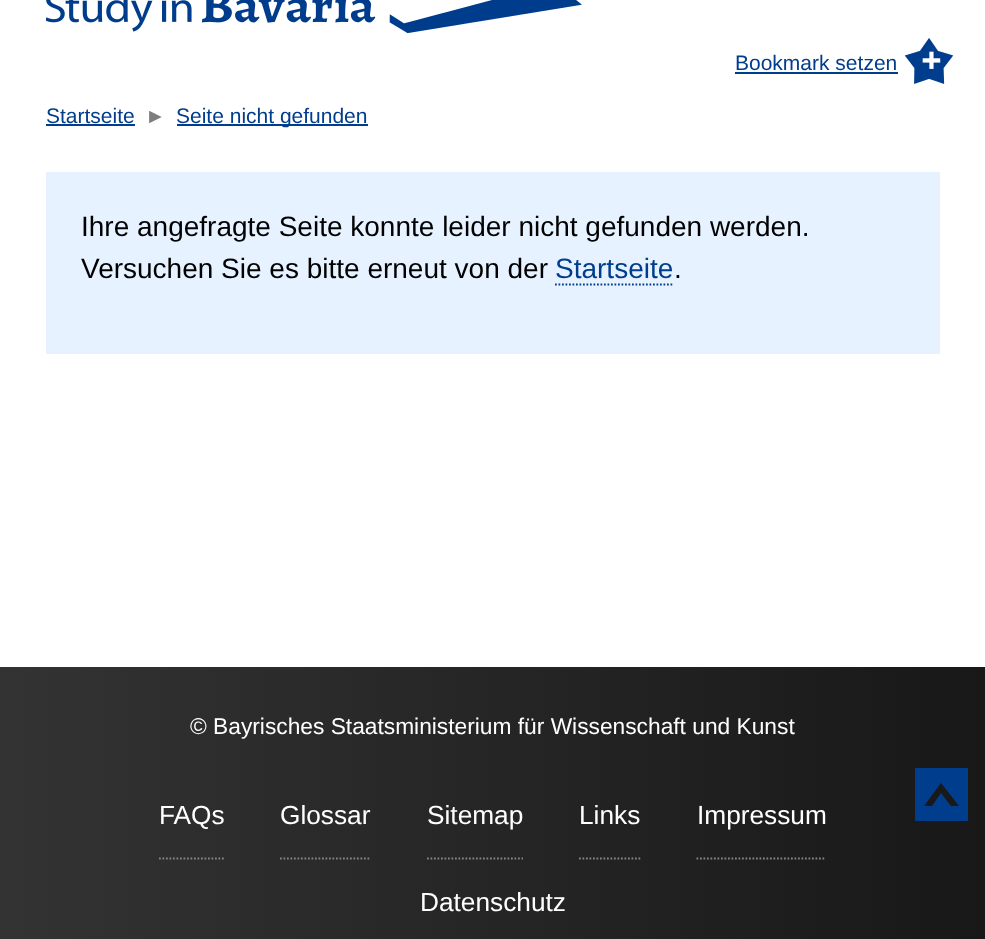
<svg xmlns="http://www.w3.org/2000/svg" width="985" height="939">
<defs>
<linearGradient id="g1" gradientUnits="userSpaceOnUse" x1="0" y1="814" x2="985" y2="814"><stop offset="0" stop-color="#333"/><stop offset="1" stop-color="#181818"/></linearGradient>
</defs>
<rect width="100%" height="100%" fill="#fff"/>
<image x="46" y="0" width="536" height="34" href="media/1.png"/>
<text x="735" y="70" style="font-family:Liberation Sans;font-size:21px;fill:#003d8d">Bookmark setzen</text>
<rect x="735" y="72" width="163" height="2" fill="#003d8d"/>
<image x="904" y="38" width="50" height="46" href="media/2.png"/>
<text x="46" y="123" style="font-family:Liberation Sans;font-size:21px;fill:#003d8d">Startseite</text>
<rect x="46" y="124" width="89" height="2" fill="#003d8d"/>
<text x="145" y="123" style="font-family:Liberation Sans;font-size:21px;fill:#7e7e7e">►</text>
<rect x="177" y="124" width="191" height="2" fill="#003d8d"/>
<text x="176" y="123" style="font-family:Liberation Sans;font-size:21px;fill:#003d8d">Seite nicht gefunden</text>
<rect x="46" y="172" width="894" height="182" fill="#e6f2ff"/>
<text x="81" y="236" style="font-family:Liberation Sans;font-size:28px;fill:#000">Ihre angefragte Seite konnte leider nicht gefunden werden.</text>
<text x="81" y="278" style="font-family:Liberation Sans;font-size:28px;fill:#000">Versuchen Sie es bitte erneut von der</text>
<text x="555" y="278" style="font-family:Liberation Sans;font-size:28px;fill:#003d8d">Startseite</text>
<path d="M555 284.5h119" fill="none" stroke="#003d8d" stroke-width="1.8" stroke-dasharray="1.75 1.75"/>
<text x="674" y="278" style="font-family:Liberation Sans;font-size:28px;fill:#000">.</text>
<rect y="667" width="985" height="272" fill="url(#g1)"/>
<path d="M924 806l17-23l18 23h-8l-10-13l-9 13zm-9-38v53h53v-53z" fill="#003d8d"/>
<text x="190" y="734" style="font-family:Liberation Sans;font-size:22.75px;fill:#fff">© Bayrisches Staatsministerium für Wissenschaft und Kunst</text>
<path d="M159 858.5h65" fill="none" stroke="#858585" stroke-width="1.8" stroke-dasharray="1.75 1.75"/>
<text x="159" y="824" style="font-family:Liberation Sans;font-size:26.25px;fill:#fff">FAQs</text>
<path d="M280 858.5h91" fill="none" stroke="#858585" stroke-width="1.8" stroke-dasharray="1.75 1.75"/>
<text x="280" y="824" style="font-family:Liberation Sans;font-size:26.25px;fill:#fff">Glossar</text>
<path d="M427 858.5h96" fill="none" stroke="#858585" stroke-width="1.8" stroke-dasharray="1.75 1.75"/>
<text x="427" y="824" style="font-family:Liberation Sans;font-size:26.25px;fill:#fff">Sitemap</text>
<path d="M579 858.5h61.5" fill="none" stroke="#858585" stroke-width="1.8" stroke-dasharray="1.75 1.75"/>
<text x="579" y="824" style="font-family:Liberation Sans;font-size:26.25px;fill:#fff">Links</text>
<path d="M696.5 858.5h129.5" fill="none" stroke="#858585" stroke-width="1.8" stroke-dasharray="1.75 1.75"/>
<text x="697" y="824" style="font-family:Liberation Sans;font-size:26.25px;fill:#fff">Impressum</text>
<text x="420" y="911" style="font-family:Liberation Sans;font-size:26.25px;fill:#fff">Datenschutz</text>
</svg>
